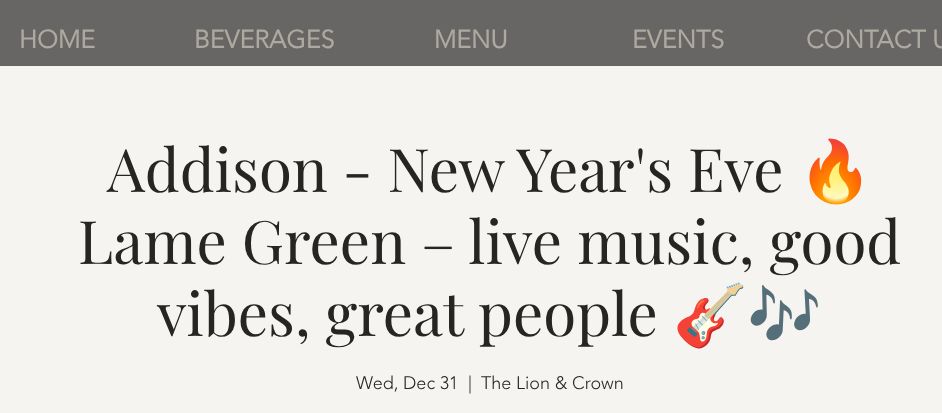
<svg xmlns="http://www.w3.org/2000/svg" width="942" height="413">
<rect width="100%" height="100%" fill="#f5f4f0"/>
<rect width="942" height="66" fill="#686664"/>
<text x="19" y="48" style="font-family:'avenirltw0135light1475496';font-size:25px;font-weight:bold;fill:#ada9a0">HOME</text>
<text x="194" y="48" style="font-family:'avenirltw0135light1475496';font-size:25px;font-weight:bold;fill:#ada9a0">BEVERAGES</text>
<text x="434" y="48" style="font-family:'avenirltw0135light1475496';font-size:25px;font-weight:bold;fill:#ada9a0">MENU</text>
<text x="632" y="48" style="font-family:'avenirltw0135light1475496';font-size:25px;font-weight:bold;fill:#ada9a0">EVENTS</text>
<text x="806" y="48" style="font-family:'avenirltw0135light1475496';font-size:25px;font-weight:bold;fill:#ada9a0">CONTACT U</text>
<text x="107" y="192" style="font-family:Playfair Display;font-size:60px;fill:#272521">Addison - New Year's Eve</text>
<text x="798" y="192" style="font-family:Noto Color Emoji;font-size:60px;fill:#272521">🔥</text>
<text x="78" y="264" style="font-family:Playfair Display;font-size:60px;fill:#272521">Lame Green – live music, good</text>
<text x="157" y="336" style="font-family:Playfair Display;font-size:60px;fill:#272521">vibes, great people</text>
<text x="673" y="336" style="font-family:Noto Color Emoji;font-size:60px;fill:#272521">🎸🎶</text>
<text x="356" y="389" style="font-family:'avenirltw0135light1475496';font-size:18px;font-weight:300;fill:#272521">Wed, Dec 31</text>
<text x="468" y="389" style="font-family:'avenirltw0135light1475496';font-size:18px;font-weight:300;fill:#272521">|</text>
<text x="481" y="389" style="font-family:'avenirltw0135light1475496';font-size:18px;font-weight:300;fill:#272521">The Lion &amp; Crown</text>
</svg>
